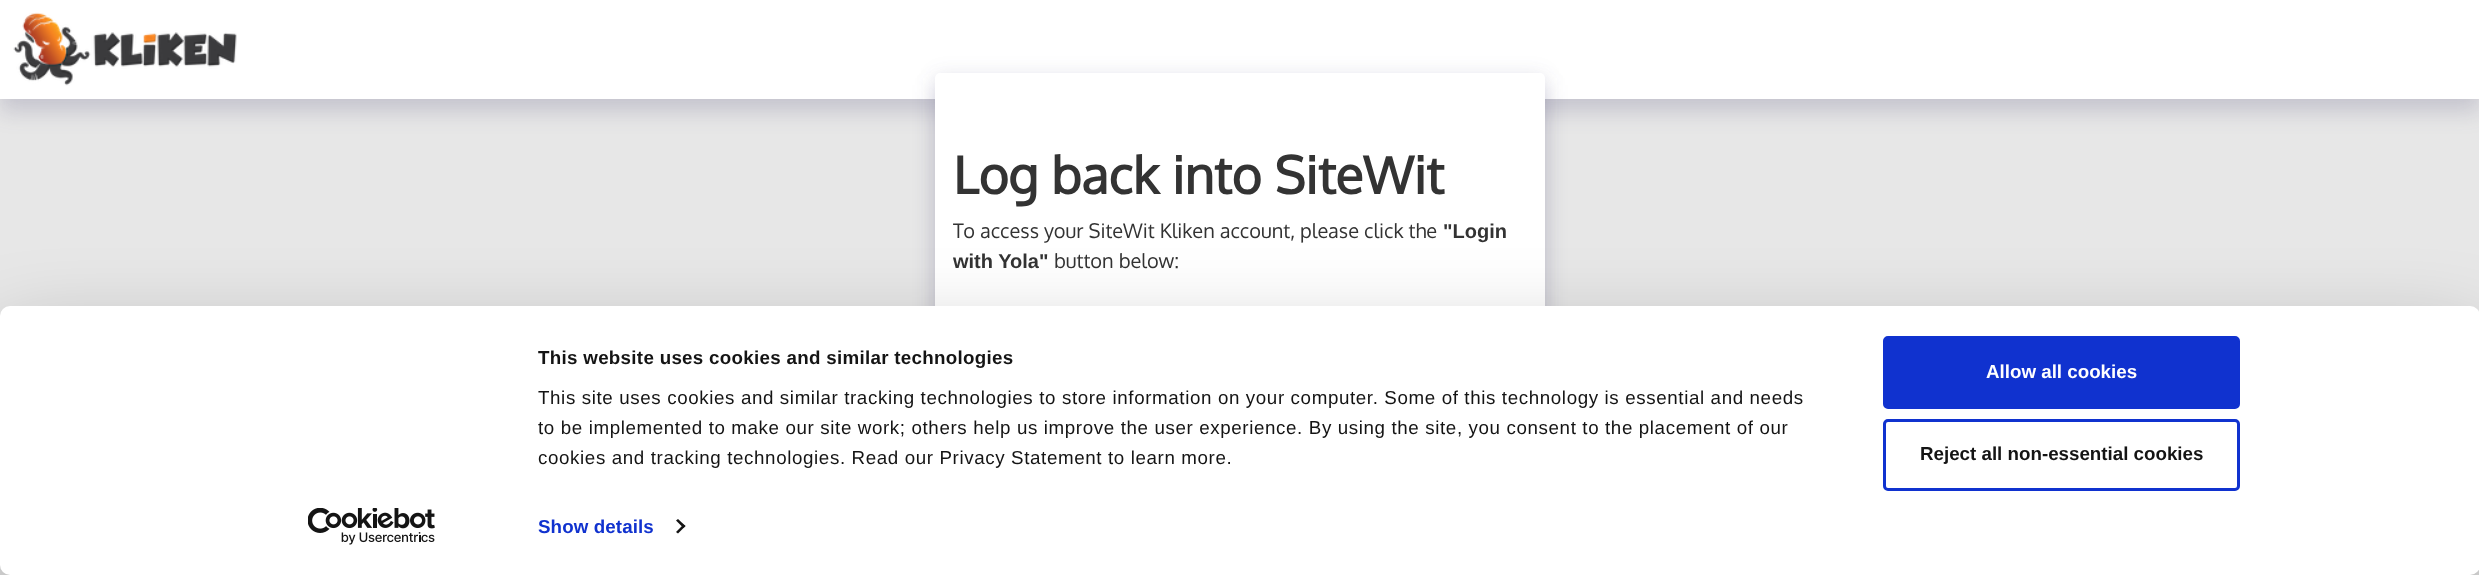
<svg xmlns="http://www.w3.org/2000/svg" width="2479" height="575">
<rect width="100%" height="100%" fill="#e7e7e7"/>
<rect y="13" width="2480" height="98" fill="#3e396b33" filter="blur(11px)"/>
<rect width="2479" height="99" fill="#fff"/>
<image x="13" y="12" width="224" height="74" href="media/1.png"/>
<rect x="935" y="85" width="610" height="430" fill="#3e396b33" filter="blur(11px)"/>
<rect x="934" y="73" width="612" height="432" rx="6" fill="#3e396b12" filter="blur(9.5px)"/>
<rect x="935" y="73" width="610" height="430" rx="5" fill="#fff"/>
<text x="953" y="194" style="font-family:Oxygen;font-size:51.25px;font-weight:bold;fill:#333">Log back into SiteWit</text>
<text x="953" y="238" style="font-family:Oxygen;font-size:20px;fill:#333">To access your SiteWit Kliken account, please click the</text>
<text x="1443" y="238" style="font-family:Liberation Sans;font-size:20px;font-weight:bold;fill:#333">"Login</text>
<text x="953" y="268" style="font-family:Liberation Sans;font-size:20px;font-weight:bold;fill:#333">with Yola"</text>
<text x="1054" y="268" style="font-family:Oxygen;font-size:20px;fill:#333">button below:</text>
<rect y="344" width="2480" height="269" rx="10" fill="#0000004d" filter="blur(44px)"/>
<rect y="306" width="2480" height="269" rx="10" fill="#fff"/>
<text x="538" y="364" style="font-family:Liberation Sans;font-size:18.75px;font-weight:bold;letter-spacing:0.3px;fill:#141414">This website uses cookies and similar technologies</text>
<text x="538" y="404" style="font-family:Liberation Sans;font-size:18.75px;letter-spacing:0.62px;fill:#141414">This site uses cookies and similar tracking technologies to store information on your computer. Some of this technology is essential and needs</text>
<text x="538" y="434" style="font-family:Liberation Sans;font-size:18.75px;letter-spacing:0.62px;fill:#141414">to be implemented to make our site work; others help us improve the user experience. By using the site, you consent to the placement of our</text>
<text x="538" y="464" style="font-family:Liberation Sans;font-size:18.75px;letter-spacing:0.62px;fill:#141414">cookies and tracking technologies. Read our Privacy Statement to learn more.</text>
<text x="538" y="533" style="font-family:Liberation Sans;font-size:18.75px;font-weight:bold;letter-spacing:0.1px;fill:#1032cf">Show details</text>
<path d="M678 519l7.5 7l-2 2l-7.5-7.5z" fill="#141414"/>
<path d="M683.5 524.5l2 1.5l-7.5 7.5l-2-1.5z" fill="#141414"/>
<rect x="1884.5" y="337.5" width="354" height="70" rx="3.5" fill="#1032cf" stroke="#1032cf" stroke-width="3"/>
<text x="1986" y="378" style="font-family:Liberation Sans;font-size:18.75px;font-weight:bold;fill:#fff">Allow all cookies</text>
<rect x="1884.5" y="420.5" width="354" height="69" rx="3.5" fill="none" stroke="#1032cf" stroke-width="3"/>
<text x="1920" y="460" style="font-family:Liberation Sans;font-size:18.75px;font-weight:bold;fill:#141414">Reject all non-essential cookies</text>
<image x="308" y="508" width="127" height="37" href="media/2.png"/>
</svg>
